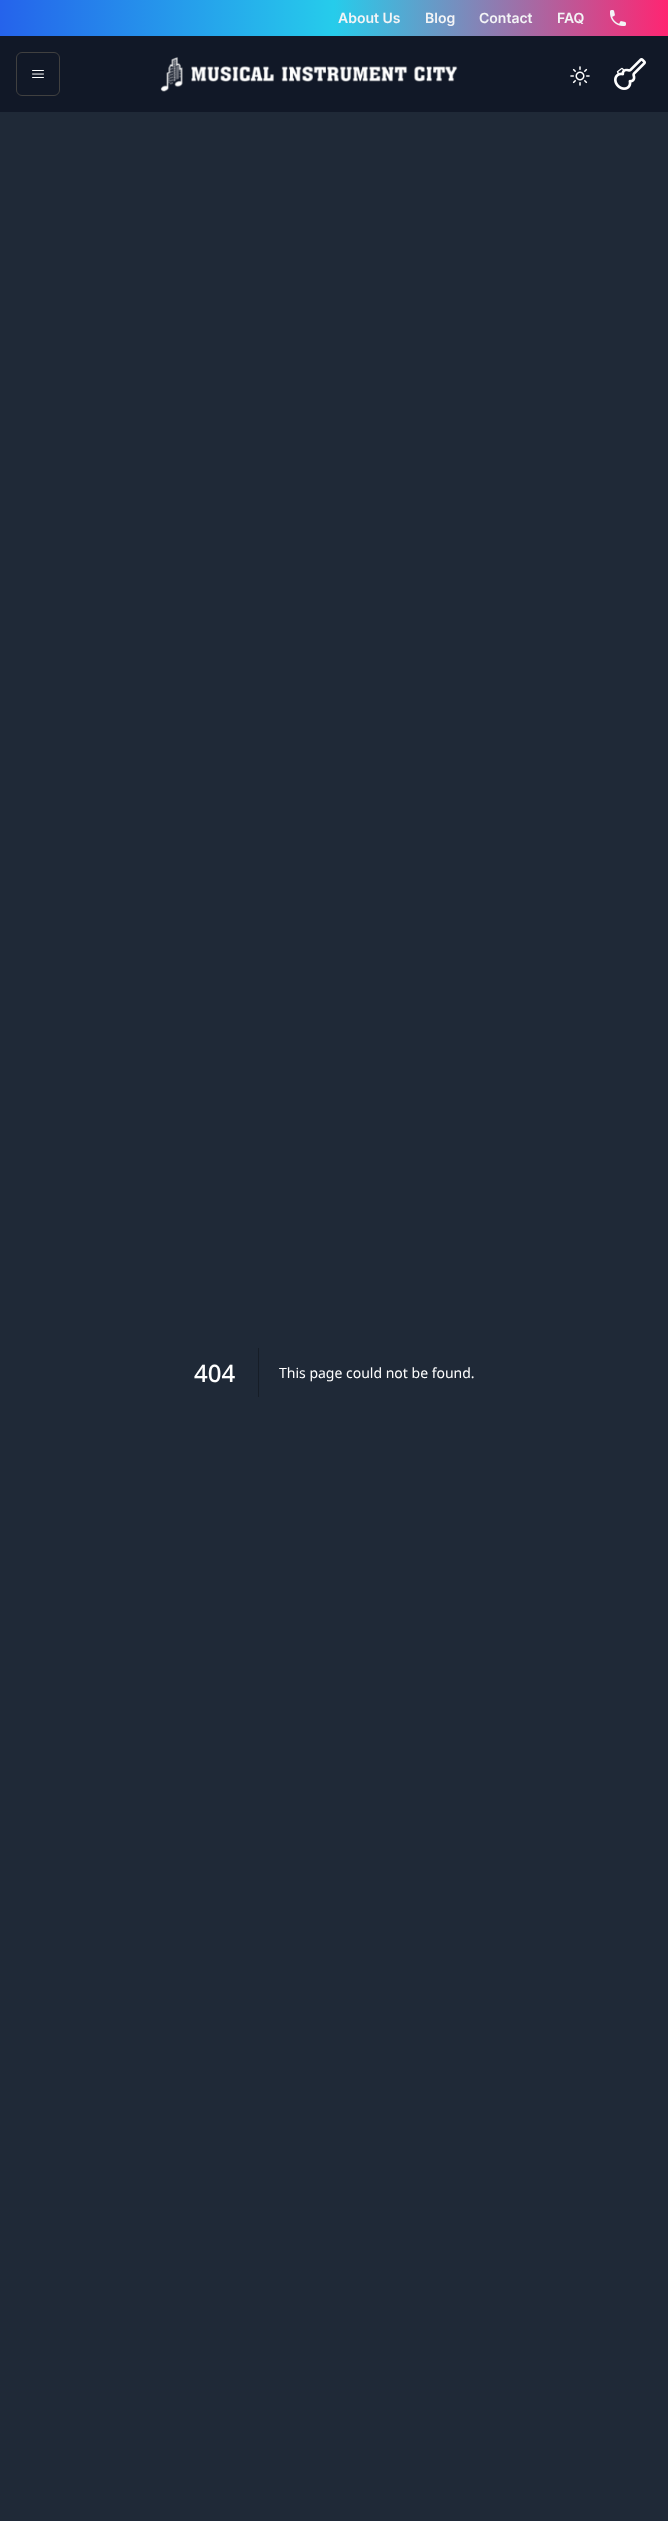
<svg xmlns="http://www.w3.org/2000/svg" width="668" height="2521">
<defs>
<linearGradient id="g1" gradientUnits="userSpaceOnUse" x1="0" y1="18" x2="668" y2="18"><stop offset="0" stop-color="#2563eb"/><stop offset="0.5" stop-color="#26cceb"/><stop offset="1" stop-color="#ff2572"/></linearGradient>
</defs>
<rect width="100%" height="100%" fill="#1f2937"/>
<rect width="668" height="36" fill="url(#g1)"/>
<text x="338" y="23" style="font-family:Inter;font-size:14px;font-weight:600;fill:#f3f4f6">About Us</text>
<text x="425" y="23" style="font-family:Inter;font-size:14px;font-weight:600;fill:#f3f4f6">Blog</text>
<text x="479" y="23" style="font-family:Inter;font-size:14px;font-weight:600;fill:#f3f4f6">Contact</text>
<text x="557" y="23" style="font-family:Inter;font-size:14px;font-weight:600;fill:#f3f4f6">FAQ</text>
<image x="610" y="10" width="16" height="16" href="media/1.png"/>
<rect y="36" width="668" height="76" fill="#111827"/>
<rect x="16.5" y="52.5" width="43" height="43" rx="5.5" fill="none" stroke="#404040"/>
<image x="32" y="70" width="12" height="8" href="media/2.png"/>
<image x="160" y="57" width="298" height="35" href="media/3.png"/>
<image x="570" y="66" width="20" height="20" href="media/4.png"/>
<image x="614" y="58" width="32" height="32" href="media/5.png"/>
<rect x="258" y="1348" width="1" height="49" fill="#161d27"/>
<text x="194" y="1382" style="font-family:Noto Sans;font-size:24px;font-weight:500;fill:#fff">404</text>
<text x="279" y="1378" style="font-family:Noto Sans;font-size:14px;fill:#fff">This page could not be found.</text>
</svg>
